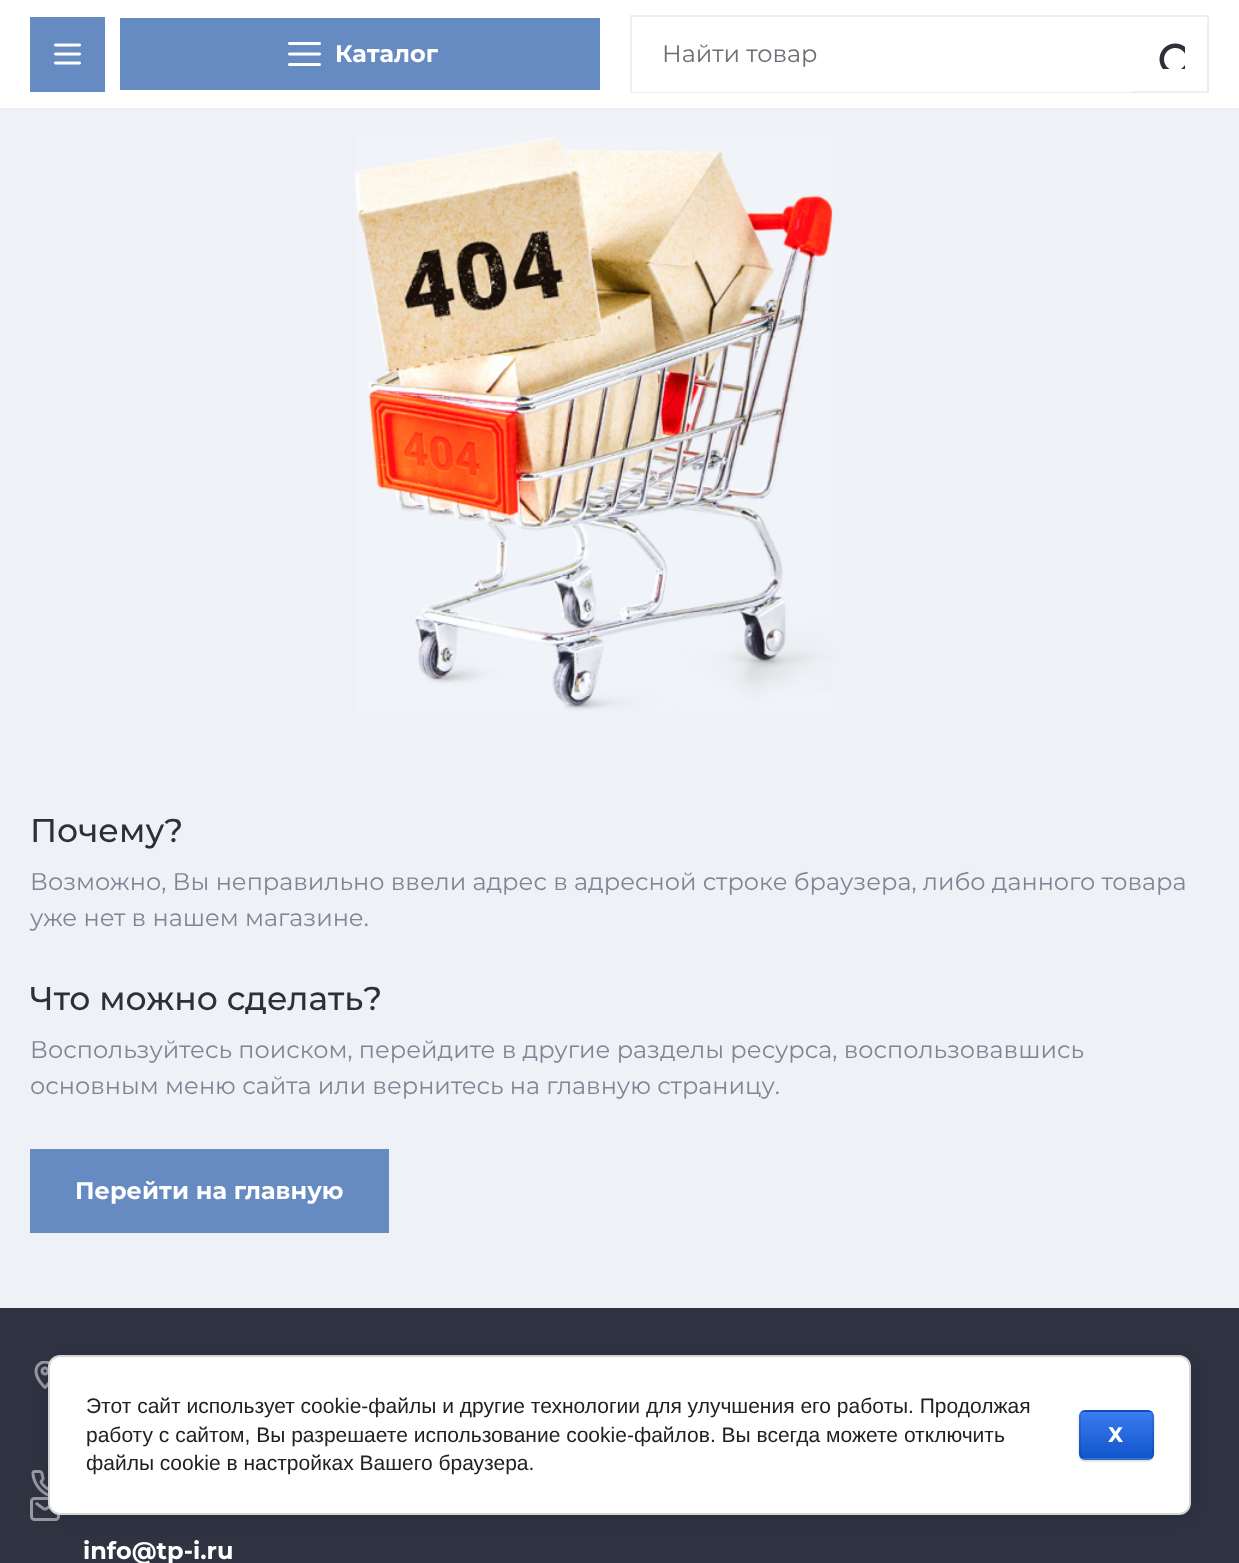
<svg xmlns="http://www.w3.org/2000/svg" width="1239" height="1563">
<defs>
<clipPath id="clip1"><rect x="1079" y="1410" width="75" height="50" rx="6"/></clipPath>
<linearGradient id="g1" gradientUnits="userSpaceOnUse" x1="1116" y1="1365" x2="1116" y2="1412"><stop offset="0" stop-color="#3b7cef"/><stop offset="1" stop-color="#15c"/></linearGradient>
<linearGradient id="g2" gradientUnits="userSpaceOnUse" x1="1116" y1="1412" x2="1116" y2="1458"><stop offset="0" stop-color="#3b7cef"/><stop offset="1" stop-color="#15c"/></linearGradient>
<linearGradient id="g3" gradientUnits="userSpaceOnUse" x1="1116" y1="1458" x2="1116" y2="1505"><stop offset="0" stop-color="#3b7cef"/><stop offset="1" stop-color="#15c"/></linearGradient>
</defs>
<rect width="100%" height="100%" fill="#eef1f6"/>
<rect width="1239" height="108" fill="#fff"/>
<rect y="108" width="1239" height="2" fill="#ededf3"/>
<rect x="30" y="17" width="75" height="75" fill="#668bc2"/>
<image x="54" y="43" width="27" height="22" href="media/1.png"/>
<rect x="120" y="18" width="480" height="72" fill="#668bc2"/>
<image x="288" y="42" width="33" height="24" href="media/2.png"/>
<text x="335" y="62" style="font-family:Montserrat;font-size:24px;font-weight:bold;fill:#fff">Каталог</text>
<rect x="631" y="16" width="577" height="76" fill="none" stroke="#ededf3" stroke-width="2"/>
<rect x="632" y="91" width="501" height="1" fill="#fff"/>
<text x="662" y="62" style="font-family:Montserrat;font-size:24px;fill:#6d6d74">Найти товар</text>
<image x="1159" y="43" width="26" height="26" href="media/3.png"/>
<image x="354" y="136" width="479" height="575" href="media/4.png"/>
<text x="30" y="842" style="font-family:Montserrat;font-size:33px;font-weight:500;fill:#2e2f38">Почему?</text>
<text x="30" y="890" style="font-family:Montserrat;font-size:24px;fill:#828496">Возможно, Вы неправильно ввели адрес в адресной строке браузера, либо данного товара</text>
<text x="30" y="926" style="font-family:Montserrat;font-size:24px;fill:#828496">уже нет в нашем магазине.</text>
<text x="30" y="1010" style="font-family:Montserrat;font-size:33px;font-weight:500;fill:#2e2f38">Что можно сделать?</text>
<text x="30" y="1058" style="font-family:Montserrat;font-size:24px;fill:#828496">Воспользуйтесь поиском, перейдите в другие разделы ресурса, воспользовавшись</text>
<text x="30" y="1094" style="font-family:Montserrat;font-size:24px;fill:#828496">основным меню сайта или вернитесь на главную страницу.</text>
<rect x="30" y="1149" width="359" height="84" fill="#668bc2"/>
<text x="75" y="1199" style="font-family:Montserrat;font-size:24px;font-weight:bold;fill:#fff">Перейти на главную</text>
<rect y="1308" width="1239" height="255" fill="#303342"/>
<image x="34" y="1361" width="16" height="28" href="media/5.png"/>
<image x="31" y="1470" width="17" height="27" href="media/6.png"/>
<image x="30" y="1497" width="30" height="24" href="media/7.png"/>
<text x="83" y="1559" style="font-family:Montserrat;font-size:24px;font-weight:bold;fill:#fff">info@tp-i.ru</text>
<rect x="51" y="1358" width="1143" height="160" rx="12" fill="#00000024" filter="blur(13.5px)"/>
<rect x="49" y="1356" width="1141" height="158" rx="11" fill="#fff" stroke="#d6d6d6" stroke-width="2"/>
<text x="86" y="1413" style="font-family:Liberation Sans;font-size:21px;fill:#212121">Этот сайт использует cookie-файлы и другие технологии для улучшения его работы. Продолжая</text>
<text x="86" y="1442" style="font-family:Liberation Sans;font-size:21px;fill:#212121">работу с сайтом, Вы разрешаете использование cookie-файлов. Вы всегда можете отключить</text>
<text x="86" y="1470" style="font-family:Liberation Sans;font-size:21px;fill:#212121">файлы cookie в настройках Вашего браузера.</text>
<rect x="1079" y="1412" width="75" height="49" rx="6" fill="#00000033" filter="blur(1px)"/>
<g clip-path="url(#clip1)">
<rect x="1079" y="1410" width="75" height="2" fill="url(#g1)"/>
<rect x="1079" y="1412" width="75" height="46" fill="url(#g2)"/>
<rect x="1079" y="1458" width="75" height="2" fill="url(#g3)"/>
</g>
<rect x="1080" y="1411" width="73" height="48" rx="5" fill="none" stroke="#0000001a" stroke-width="2"/>
<text x="1108" y="1442" style="font-family:Montserrat;font-size:21px;font-weight:bold;fill:#fff">Х</text>
</svg>
